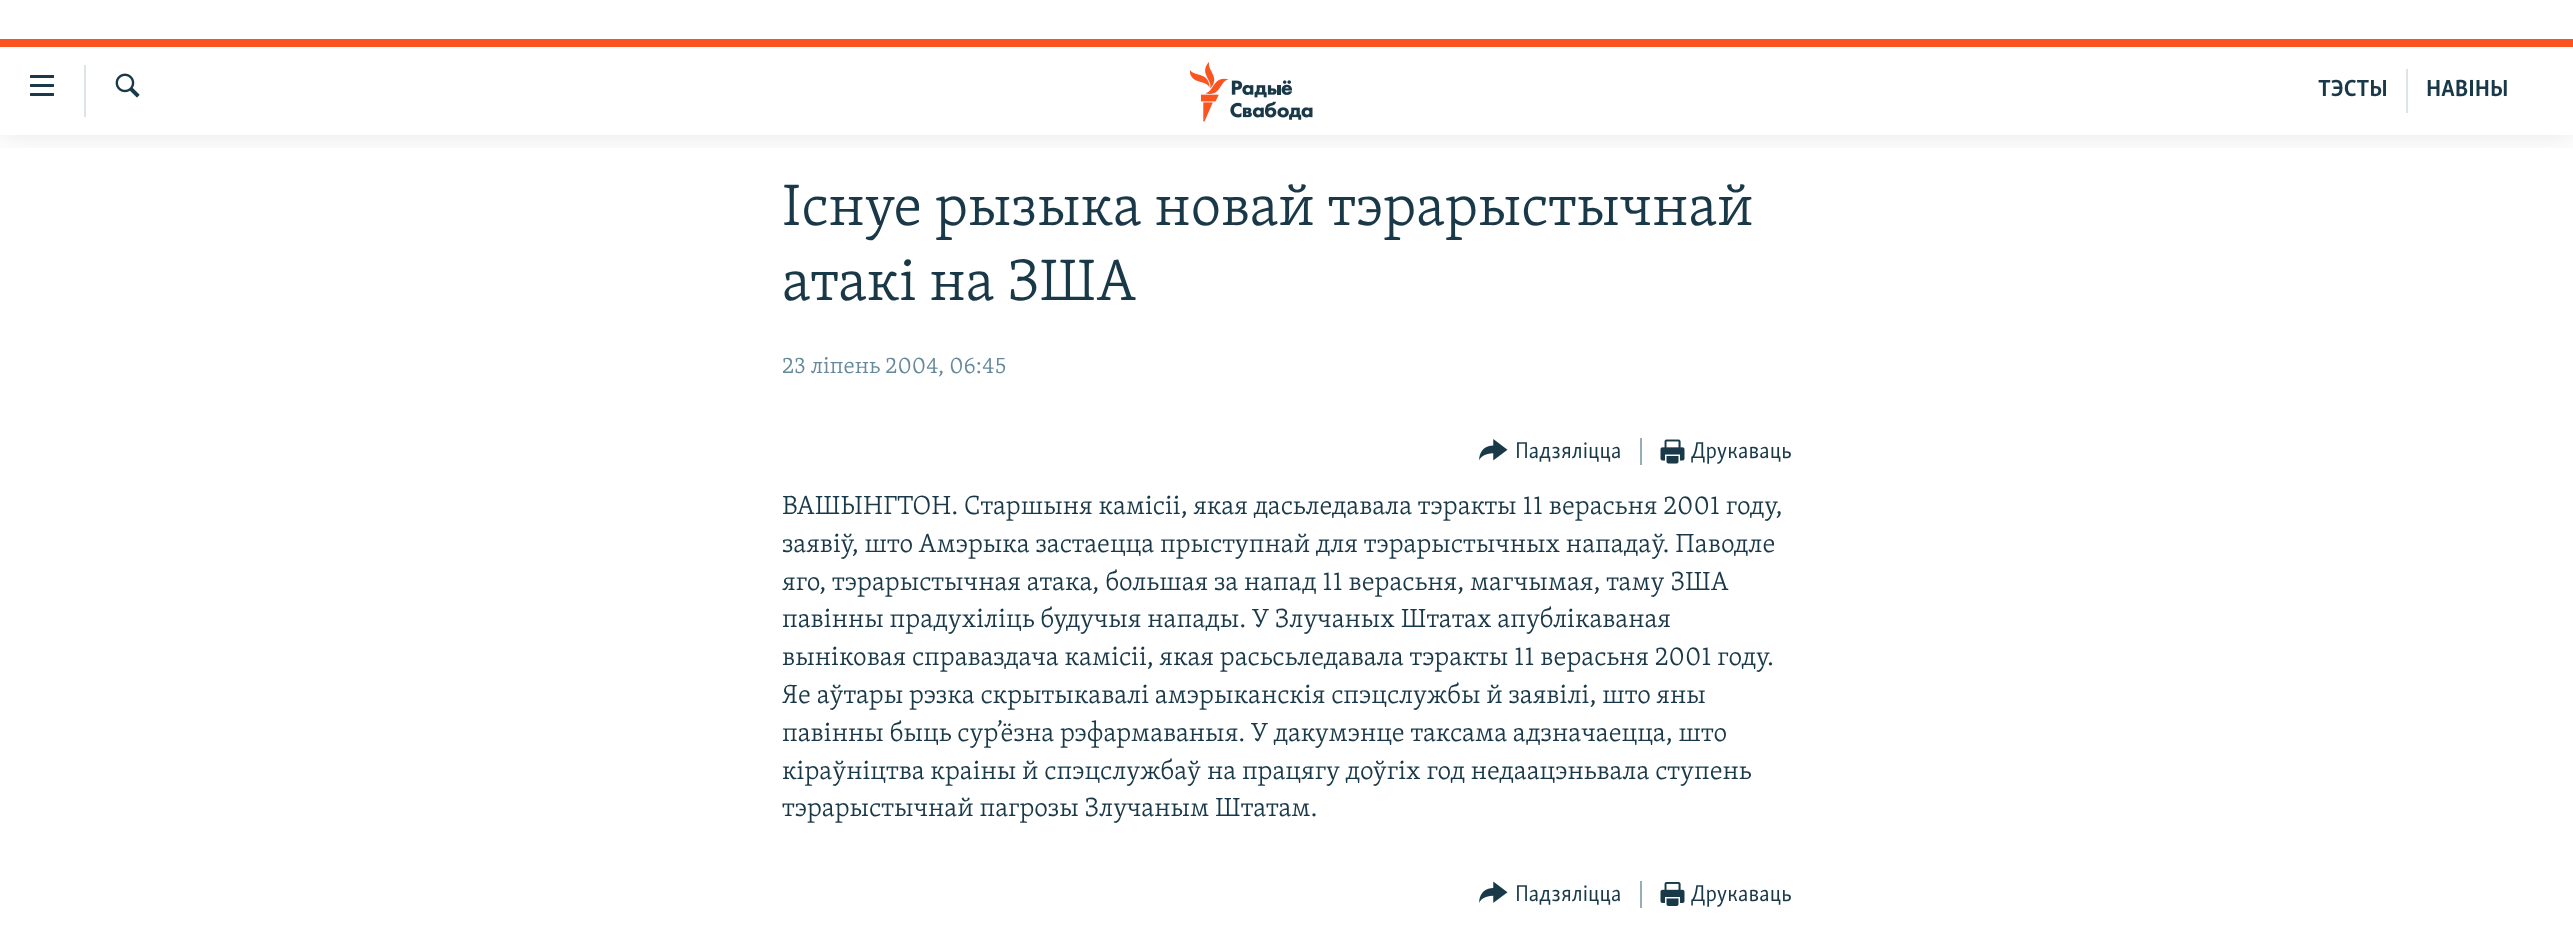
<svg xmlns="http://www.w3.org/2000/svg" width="2573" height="939">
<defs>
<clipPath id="clip1"><rect x="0" y="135" width="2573" height="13"/></clipPath>
</defs>
<rect width="100%" height="100%" fill="#fff"/>
<g clip-path="url(#clip1)">
<rect y="39" width="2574" height="96" fill="#0000001a" filter="blur(15px)"/>
</g>
<rect y="20" width="2573" height="19" fill="#fff"/>
<rect y="39" width="2573" height="8" fill="#fa5420"/>
<image x="30" y="75" width="24" height="21" href="media/1.png"/>
<rect x="84" y="65" width="2" height="52" fill="#dce4e8"/>
<image x="115" y="73" width="25" height="25" href="media/2.png"/>
<image x="1190" y="62" width="123" height="60" href="media/3.png"/>
<rect x="2406" y="69" width="2" height="44" fill="#dce4e8"/>
<text x="2318" y="96" style="font-family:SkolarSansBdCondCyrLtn;font-size:24px;font-weight:bold;fill:#1a3948">ТЭСТЫ</text>
<text x="2426" y="96" style="font-family:SkolarSansBdCondCyrLtn;font-size:24px;font-weight:bold;fill:#1a3948">НАВІНЫ</text>
<text x="782" y="225" style="font-family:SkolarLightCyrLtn;font-size:60px;font-weight:300;fill:#1a3948">Існуе рызыка новай тэрарыстычнай</text>
<text x="782" y="300" style="font-family:SkolarLightCyrLtn;font-size:60px;font-weight:300;fill:#1a3948">атакі на ЗША</text>
<text x="782" y="373" style="font-family:SkolarLightCyrLtn;font-size:23.6px;font-weight:300;fill:#678a9b">23 ліпень 2004, 06:45</text>
<image x="1479" y="439" width="29" height="22" href="media/4.png"/>
<text x="1515" y="458" style="font-family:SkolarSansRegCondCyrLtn;font-size:23.6px;fill:#1a3948">Падзяліцца</text>
<rect x="1640" y="438" width="2" height="27" fill="#95adb9"/>
<image x="1660" y="439" width="25" height="25" href="media/5.png"/>
<text x="1691" y="458" style="font-family:SkolarSansRegCondCyrLtn;font-size:23.6px;fill:#1a3948">Друкаваць</text>
<text x="782" y="514" style="font-family:SkolarLightCyrLtn;font-size:27px;font-weight:300;fill:#1a3948">ВАШЫНГТОН. Старшыня камісіі, якая дасьледавала тэракты 11 верасьня 2001 году,</text>
<text x="782" y="552" style="font-family:SkolarLightCyrLtn;font-size:27px;font-weight:300;fill:#1a3948">заявіў, што Амэрыка застаецца прыступнай для тэрарыстычных нападаў. Паводле</text>
<text x="782" y="590" style="font-family:SkolarLightCyrLtn;font-size:27px;font-weight:300;fill:#1a3948">яго, тэрарыстычная атака, большая за напад 11 верасьня, магчымая, таму ЗША</text>
<text x="782" y="627" style="font-family:SkolarLightCyrLtn;font-size:27px;font-weight:300;fill:#1a3948">павінны прадухіліць будучыя напады. У Злучаных Штатах апублікаваная</text>
<text x="782" y="665" style="font-family:SkolarLightCyrLtn;font-size:27px;font-weight:300;fill:#1a3948">выніковая справаздача камісіі, якая расьсьледавала тэракты 11 верасьня 2001 году.</text>
<text x="782" y="703" style="font-family:SkolarLightCyrLtn;font-size:27px;font-weight:300;fill:#1a3948">Яе аўтары рэзка скрытыкавалі амэрыканскія спэцслужбы й заявілі, што яны</text>
<text x="782" y="741" style="font-family:SkolarLightCyrLtn;font-size:27px;font-weight:300;fill:#1a3948">павінны быць сур’ёзна рэфармаваныя. У дакумэнце таксама адзначаецца, што</text>
<text x="782" y="779" style="font-family:SkolarLightCyrLtn;font-size:27px;font-weight:300;fill:#1a3948">кіраўніцтва краіны й спэцслужбаў на працягу доўгіх год недаацэньвала ступень</text>
<text x="782" y="816" style="font-family:SkolarLightCyrLtn;font-size:27px;font-weight:300;fill:#1a3948">тэрарыстычнай пагрозы Злучаным Штатам.</text>
<image x="1479" y="881" width="29" height="22" href="media/6.png"/>
<text x="1515" y="901" style="font-family:SkolarSansRegCondCyrLtn;font-size:23.6px;fill:#1a3948">Падзяліцца</text>
<rect x="1640" y="881" width="2" height="27" fill="#95adb9"/>
<image x="1660" y="882" width="25" height="24" href="media/7.png"/>
<text x="1691" y="901" style="font-family:SkolarSansRegCondCyrLtn;font-size:23.6px;fill:#1a3948">Друкаваць</text>
</svg>
